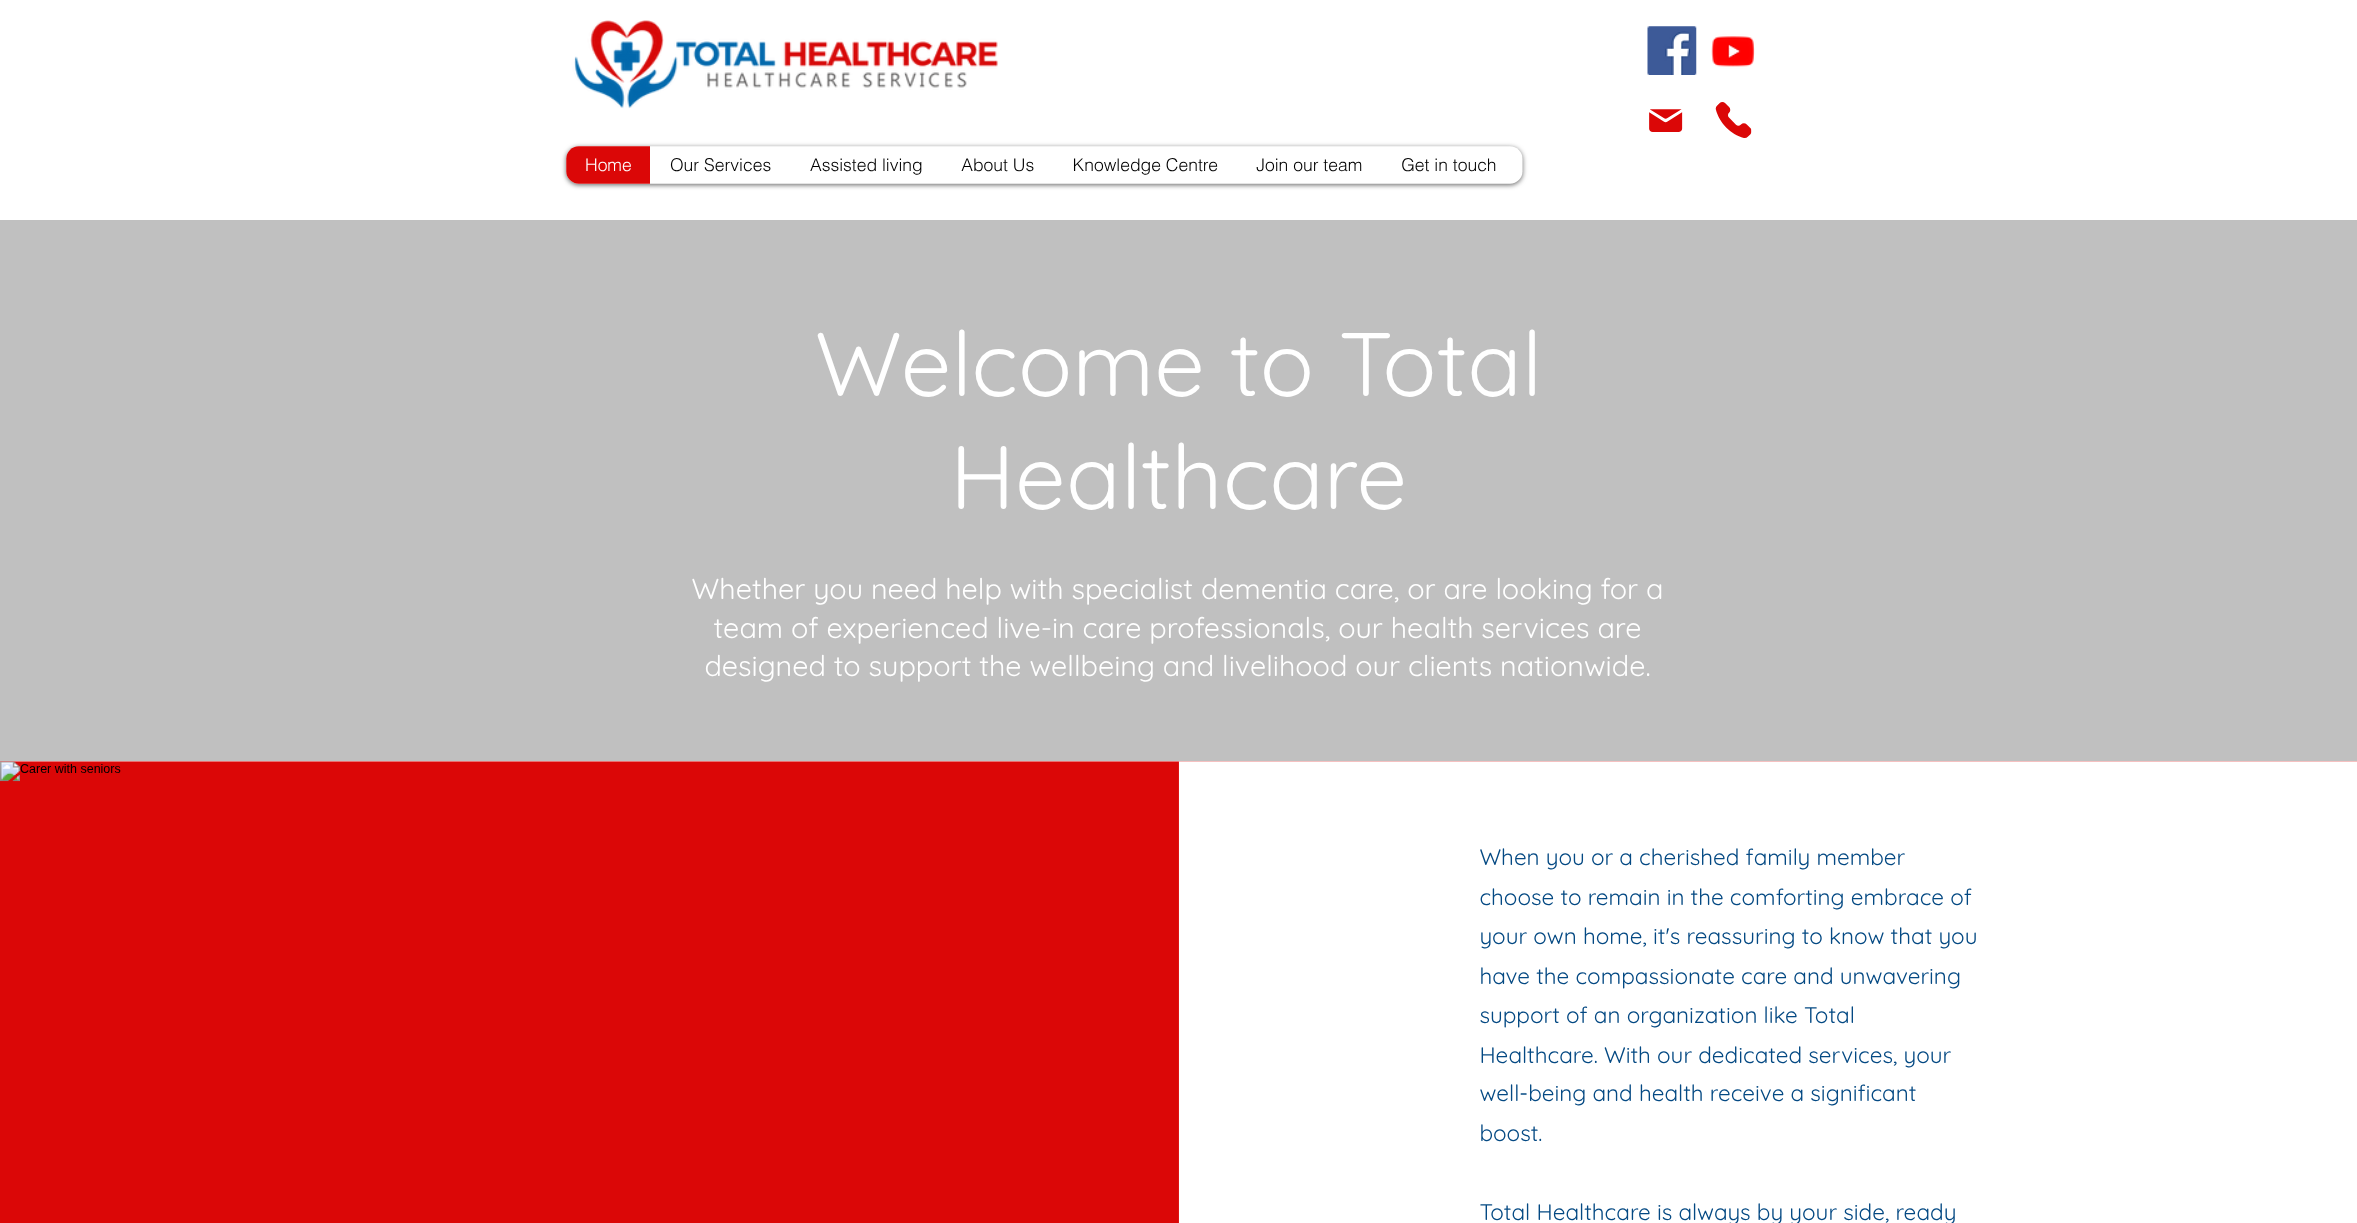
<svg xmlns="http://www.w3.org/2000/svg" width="2357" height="1223">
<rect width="100%" height="100%" fill="#fff"/>
<image x="0" y="20" width="2357" height="1203" href="media/1.png"/>
</svg>
